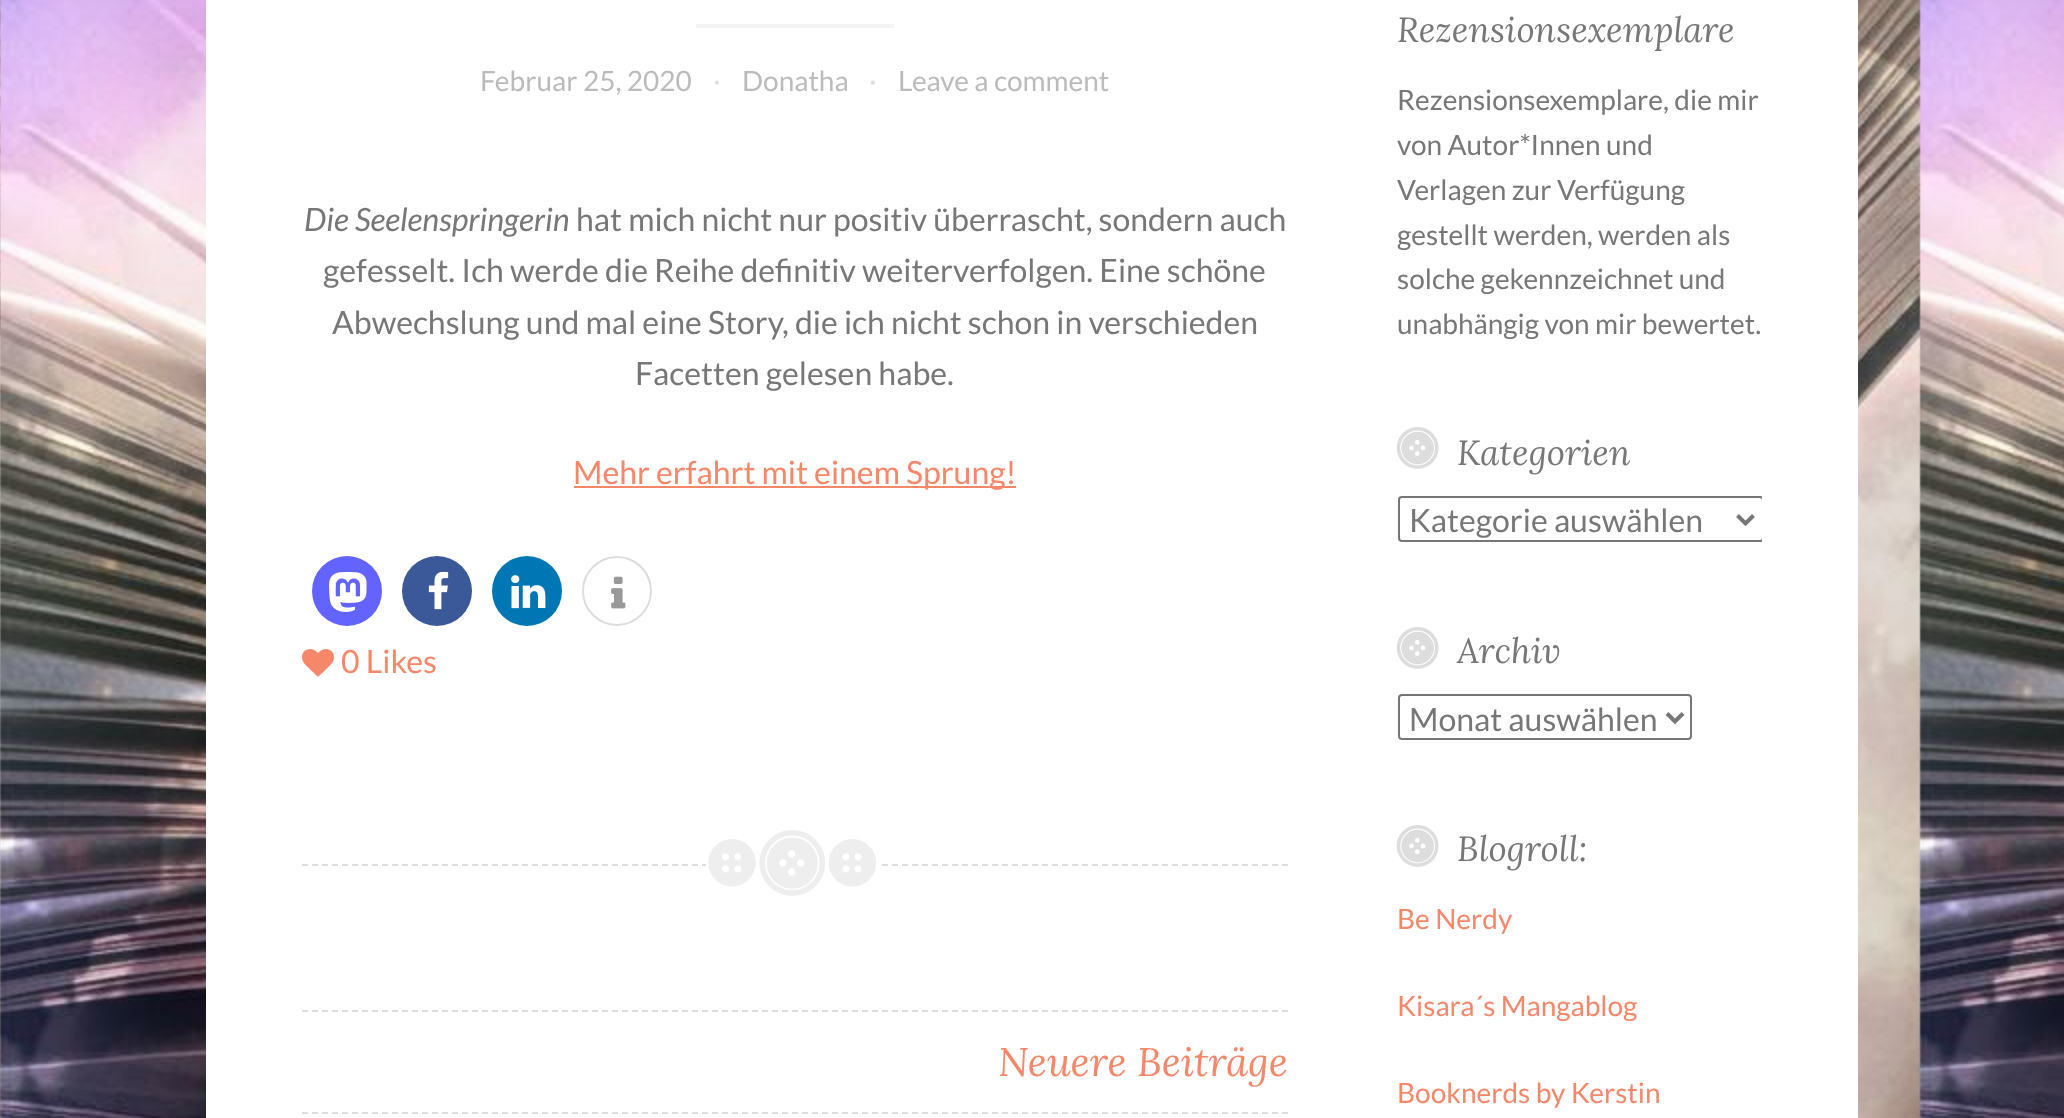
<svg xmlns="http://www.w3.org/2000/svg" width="2064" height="1118">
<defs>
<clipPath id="clip1"><rect x="1396" width="366" height="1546"/></clipPath>
</defs>
<rect width="100%" height="100%" fill="#fff"/>
<image x="0" y="0" width="2064" height="1118" href="media/1.png"/>
<rect x="206" width="1652" height="1118" fill="#fff"/>
<path d="M302 865h986" fill="none" stroke="#ddd" stroke-width="2" stroke-dasharray="6 4"/>
<rect x="696" y="24" width="198" height="4" fill="#f3f3f3"/>
<text x="480" y="91" style="font-family:Lato;font-size:28px;fill:#bbb">Februar 25, 2020</text>
<text x="713" y="91" style="font-family:Lato;font-size:28px;fill:#ddd">·</text>
<text x="742" y="91" style="font-family:Lato;font-size:28px;fill:#bbb">Donatha</text>
<text x="869" y="91" style="font-family:Lato;font-size:28px;fill:#ddd">·</text>
<text x="898" y="91" style="font-family:Lato;font-size:28px;fill:#bbb">Leave a comment</text>
<text x="304" y="231" style="font-family:Lato;font-size:32px;font-style:italic;fill:#777">Die Seelenspringerin</text>
<text x="576" y="231" style="font-family:Lato;font-size:32px;fill:#777">hat mich nicht nur positiv überrascht, sondern auch</text>
<text x="323" y="282" style="font-family:Lato;font-size:32px;fill:#777">gefesselt. Ich werde die Reihe definitiv weiterverfolgen. Eine schöne</text>
<text x="332" y="334" style="font-family:Lato;font-size:32px;fill:#777">Abwechslung und mal eine Story, die ich nicht schon in verschieden</text>
<text x="635" y="385" style="font-family:Lato;font-size:32px;fill:#777">Facetten gelesen habe.</text>
<rect x="574" y="486" width="442" height="2" fill="#f78769"/>
<text x="573" y="484" style="font-family:Lato;font-size:32px;fill:#f78769">Mehr erfahrt mit einem Sprung!</text>
<circle cx="347" cy="591" r="35" fill="#6364ff"/>
<image x="329" y="572" width="38" height="40" href="media/2.png"/>
<circle cx="437" cy="591" r="35" fill="#3b5998"/>
<image x="428" y="571" width="21" height="39" href="media/3.png"/>
<circle cx="527" cy="591" r="35" fill="#0077b5"/>
<image x="511" y="575" width="35" height="34" href="media/4.png"/>
<circle cx="617" cy="591" r="34" fill="none" stroke="#ddd" stroke-width="2"/>
<image x="611" y="576" width="15" height="33" href="media/5.png"/>
<image x="302" y="649" width="32" height="28" href="media/6.png"/>
<text x="341" y="673" style="font-family:Lato;font-size:32px;fill:#f78769">0 Likes</text>
<rect x="706" y="864" width="172" height="2" fill="#fff"/>
<image x="708" y="830" width="168" height="66" href="media/7.png"/>
<path d="M302 1011h986" fill="none" stroke="#ddd" stroke-width="2" stroke-dasharray="6 4"/>
<path d="M302 1113h986" fill="none" stroke="#ddd" stroke-width="2" stroke-dasharray="6 4"/>
<text x="998" y="1076" style="font-family:Lora;font-size:40px;font-style:italic;fill:#f78769">Neuere Beiträge</text>
<text x="1397" y="42" style="font-family:Lora;font-size:35px;font-style:italic;fill:#777">Rezensionsexemplare</text>
<text x="1397" y="110" style="font-family:Lato;font-size:28px;fill:#777">Rezensionsexemplare, die mir</text>
<text x="1397" y="155" style="font-family:Lato;font-size:28px;fill:#777">von Autor*Innen und</text>
<text x="1397" y="200" style="font-family:Lato;font-size:28px;fill:#777">Verlagen zur Verfügung</text>
<text x="1397" y="245" style="font-family:Lato;font-size:28px;fill:#777">gestellt werden, werden als</text>
<text x="1397" y="289" style="font-family:Lato;font-size:28px;fill:#777">solche gekennzeichnet und</text>
<text x="1397" y="334" style="font-family:Lato;font-size:28px;fill:#777">unabhängig von mir bewertet.</text>
<image x="1396" y="427" width="43" height="42" href="media/8.png"/>
<text x="1457" y="465" style="font-family:Lora;font-size:35px;font-style:italic;fill:#777">Kategorien</text>
<g clip-path="url(#clip1)">
<rect x="1399" y="497" width="364" height="44" rx="3" fill="none" stroke="#767676" stroke-width="2"/>
</g>
<path d="M1737.5 515.5l8 8l8-8" fill="none" stroke="#777" stroke-width="4"/>
<text x="1409" y="532" style="font-family:Lato;font-size:32px;fill:#777">Kategorie auswählen</text>
<image x="1396" y="627" width="43" height="42" href="media/8.png"/>
<text x="1457" y="663" style="font-family:Lora;font-size:35px;font-style:italic;fill:#777">Archiv</text>
<rect x="1399" y="695" width="292" height="44" rx="3" fill="none" stroke="#767676" stroke-width="2"/>
<path d="M1667 713.5l8 8l8-8" fill="none" stroke="#777" stroke-width="4"/>
<text x="1409" y="731" style="font-family:Lato;font-size:32px;fill:#777">Monat auswählen</text>
<image x="1396" y="825" width="43" height="42" href="media/8.png"/>
<text x="1457" y="861" style="font-family:Lora;font-size:35px;font-style:italic;fill:#777">Blogroll:</text>
<text x="1397" y="929" style="font-family:Lato;font-size:28px;fill:#f78769">Be Nerdy</text>
<text x="1397" y="1016" style="font-family:Lato;font-size:28px;fill:#f78769">Kisara´s Mangablog</text>
<text x="1397" y="1103" style="font-family:Lato;font-size:28px;fill:#f78769">Booknerds by Kerstin</text>
</svg>
